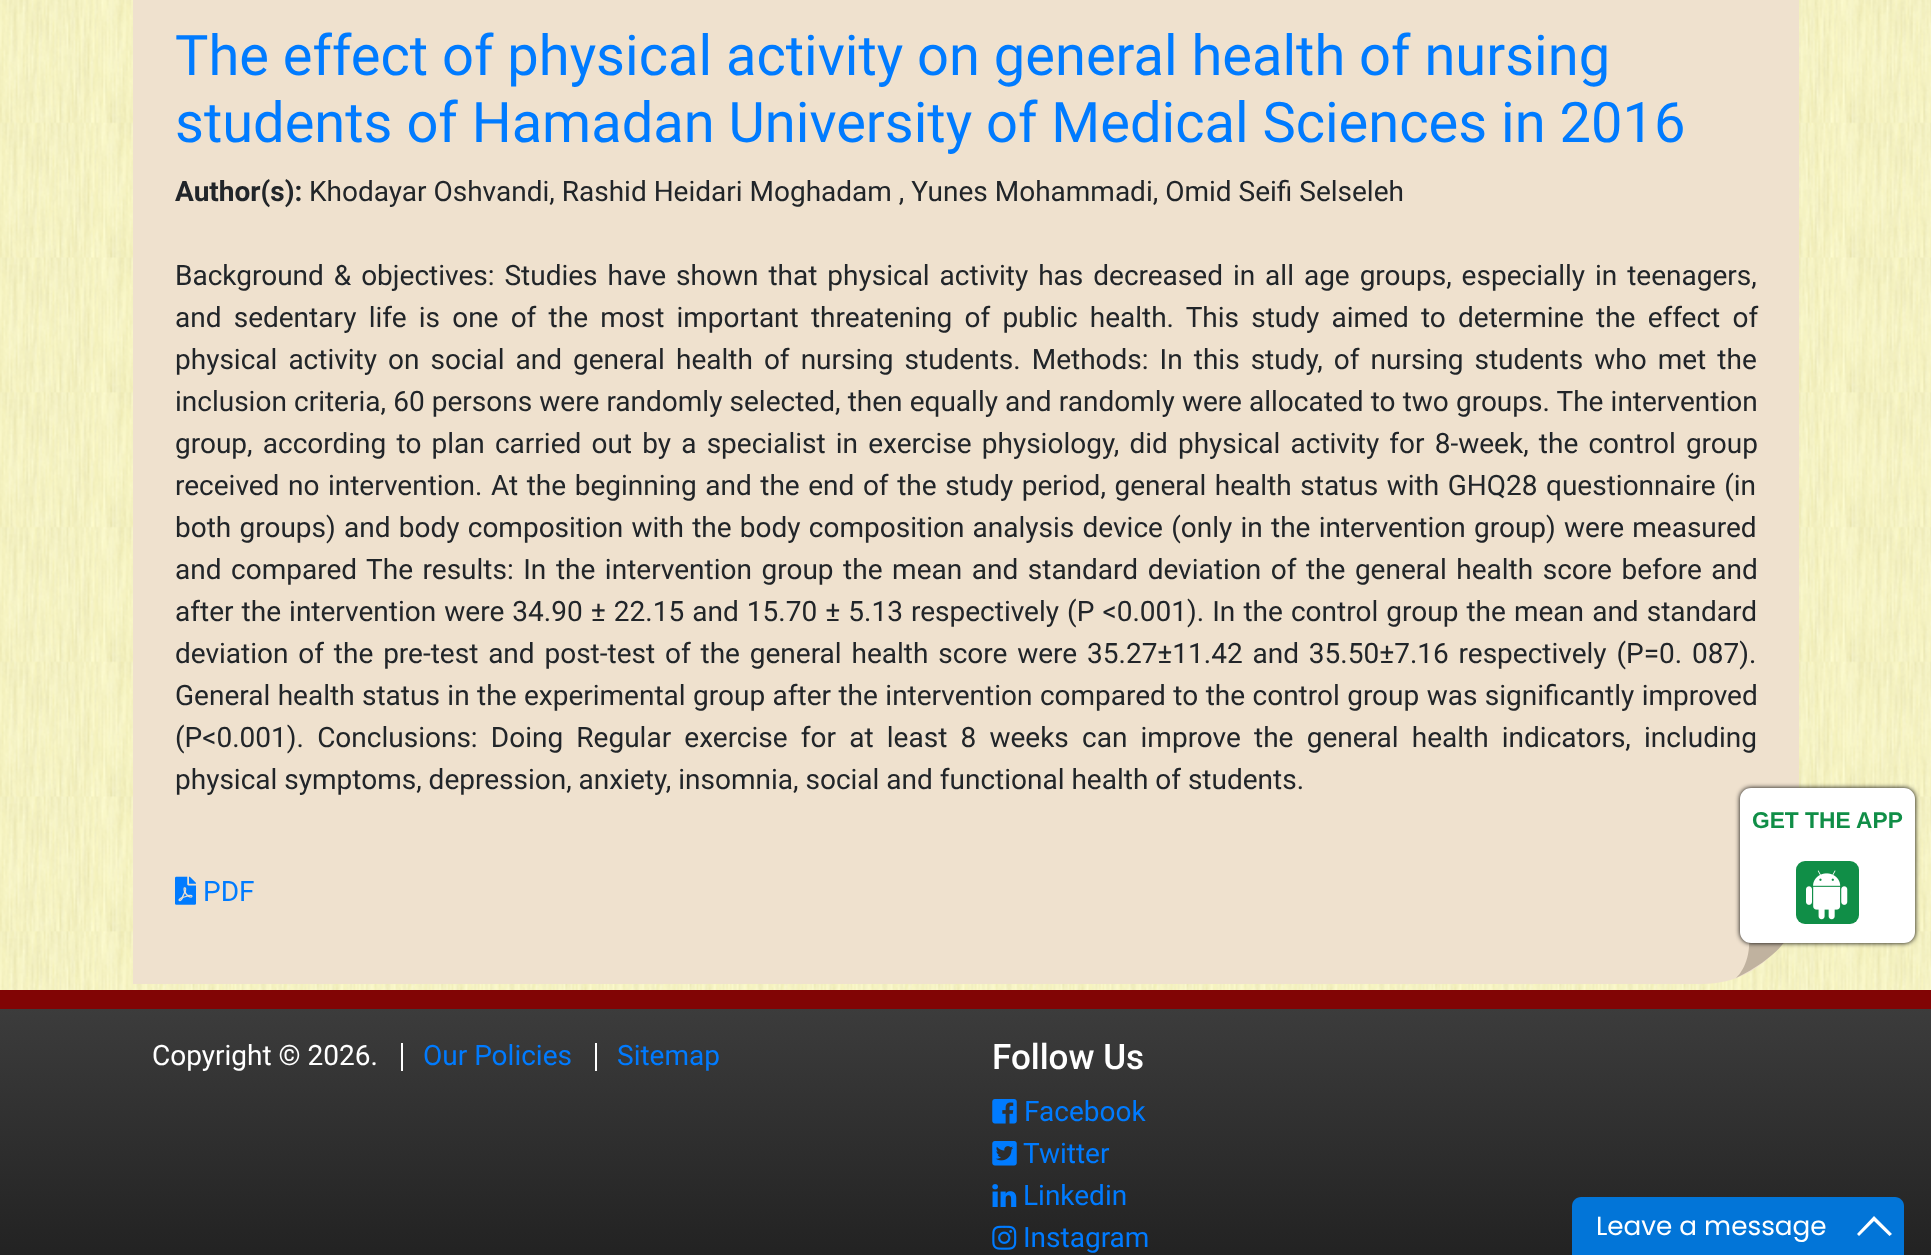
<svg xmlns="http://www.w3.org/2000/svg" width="1931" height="1255">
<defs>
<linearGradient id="g1" gradientUnits="userSpaceOnUse" x1="966" y1="1008" x2="966" y2="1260"><stop offset="0" stop-color="#3c3c3c"/><stop offset="1" stop-color="#222"/></linearGradient>
</defs>
<rect width="100%" height="100%" fill="#fff"/>
<image x="0" y="0" width="1931" height="990" href="media/1.png"/>
<path d="M133-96h1666v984c0 53-43 96-96 96h-1570z" fill="#efe1ce"/>
<text x="175" y="75" style="font-family:Roboto;font-size:56px;fill:#007bff">The effect of physical activity on general health of nursing</text>
<text x="175" y="142" style="font-family:Roboto;font-size:56px;fill:#007bff">students of Hamadan University of Medical Sciences in 2016</text>
<text x="175" y="201" style="font-family:Roboto;font-size:28px;font-weight:bold;fill:#212529">Author(s):</text>
<text x="309" y="201" style="font-family:Roboto;font-size:28px;fill:#212529">Khodayar Oshvandi, Rashid Heidari Moghadam , Yunes Mohammadi, Omid Seifi Selseleh</text>
<text x="175" y="285" word-spacing="3" style="font-family:Roboto;font-size:28px;fill:#212529">Background &amp; objectives: Studies have shown that physical activity has decreased in all age groups, especially in teenagers,</text>
<text x="175" y="327" word-spacing="5.25" style="font-family:Roboto;font-size:28px;fill:#212529">and sedentary life is one of the most important threatening of public health. This study aimed to determine the effect of</text>
<text x="175" y="369" word-spacing="4.1" style="font-family:Roboto;font-size:28px;fill:#212529">physical activity on social and general health of nursing students. Methods: In this study, of nursing students who met the</text>
<text x="175" y="411" word-spacing="0.2" style="font-family:Roboto;font-size:28px;fill:#212529">inclusion criteria, 60 persons were randomly selected, then equally and randomly were allocated to two groups. The intervention</text>
<text x="175" y="453" word-spacing="3.25" style="font-family:Roboto;font-size:28px;fill:#212529">group, according to plan carried out by a specialist in exercise physiology, did physical activity for 8-week, the control group</text>
<text x="175" y="495" word-spacing="1.6" style="font-family:Roboto;font-size:28px;fill:#212529">received no intervention. At the beginning and the end of the study period, general health status with GHQ28 questionnaire (in</text>
<text x="175" y="537" word-spacing="1.3" style="font-family:Roboto;font-size:28px;fill:#212529">both groups) and body composition with the body composition analysis device (only in the intervention group) were measured</text>
<text x="175" y="579" word-spacing="2.6" style="font-family:Roboto;font-size:28px;fill:#212529">and compared The results: In the intervention group the mean and standard deviation of the general health score before and</text>
<text x="175" y="621" word-spacing="1.15" style="font-family:Roboto;font-size:28px;fill:#212529">after the intervention were 34.90 ± 22.15 and 15.70 ± 5.13 respectively (P &lt;0.001). In the control group the mean and standard</text>
<text x="175" y="663" word-spacing="2.9" style="font-family:Roboto;font-size:28px;fill:#212529">deviation of the pre-test and post-test of the general health score were 35.27±11.42 and 35.50±7.16 respectively (P=0. 087).</text>
<text x="175" y="705" word-spacing="0.5" style="font-family:Roboto;font-size:28px;fill:#212529">General health status in the experimental group after the intervention compared to the control group was significantly improved</text>
<text x="175" y="747" word-spacing="6.25" style="font-family:Roboto;font-size:28px;fill:#212529">(P&lt;0.001). Conclusions: Doing Regular exercise for at least 8 weeks can improve the general health indicators, including</text>
<text x="175" y="789" style="font-family:Roboto;font-size:28px;fill:#212529">physical symptoms, depression, anxiety, insomnia, social and functional health of students.</text>
<image x="175" y="876" width="21" height="29" href="media/2.png"/>
<text x="203" y="901" style="font-family:Roboto;font-size:28px;fill:#007bff">PDF</text>
<path d="M1736 978c77-38 62-81 62-81c0 0-6 27-50 31c6 35-12 50-12 50z" fill="#c0b29f"/>
<rect x="1740" y="788" width="175" height="155" rx="11" fill="#000" filter="blur(2.5px)"/>
<rect x="1741" y="789" width="173" height="153" rx="10" fill="#fff" stroke="#fff" stroke-width="2"/>
<text x="1752" y="828" style="font-family:Liberation Sans;font-size:22.75px;font-weight:bold;fill:#108e47">GET THE APP</text>
<rect x="1796" y="861" width="63" height="63" rx="9" fill="#108e47"/>
<image x="1806" y="870" width="42" height="50" href="media/3.png"/>
<rect y="1009" width="1931" height="246" fill="url(#g1)"/>
<rect y="990" width="1931" height="19" fill="#810505"/>
<rect x="401" y="1043" width="2" height="28" fill="#fff"/>
<text x="152" y="1065" style="font-family:Roboto;font-size:28px;fill:#fff">Copyright © 2026.</text>
<rect x="595" y="1043" width="2" height="28" fill="#fff"/>
<text x="423" y="1065" style="font-family:Roboto;font-size:28px;fill:#007bff">Our Policies</text>
<text x="617" y="1065" style="font-family:Roboto;font-size:28px;fill:#007bff">Sitemap</text>
<text x="992" y="1069" style="font-family:Roboto;font-size:35px;font-weight:500;fill:#fff">Follow Us</text>
<image x="992" y="1099" width="25" height="25" href="media/4.png"/>
<text x="1024" y="1121" style="font-family:Roboto;font-size:28px;fill:#007bff">Facebook</text>
<image x="992" y="1141" width="25" height="25" href="media/5.png"/>
<text x="1023" y="1163" style="font-family:Roboto;font-size:28px;fill:#007bff">Twitter</text>
<image x="992" y="1184" width="25" height="23" href="media/6.png"/>
<text x="1023" y="1205" style="font-family:Roboto;font-size:28px;fill:#007bff">Linkedin</text>
<image x="992" y="1225" width="25" height="25" href="media/7.png"/>
<text x="1023" y="1247" style="font-family:Roboto;font-size:28px;fill:#007bff">Instagram</text>
<path d="M1581 1197h314c5 0 9 4 9 9v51h-332v-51c0-5 4-9 9-9z" fill="#0275d8"/>
<text x="1596" y="1235" style="font-family:Poppins;font-size:26.25px;fill:#fff">Leave a message</text>
<path d="M1874 1216l18 18l-2.5 2l-15.5-15l-15 15l-2-2z" fill="#fff"/>
</svg>
